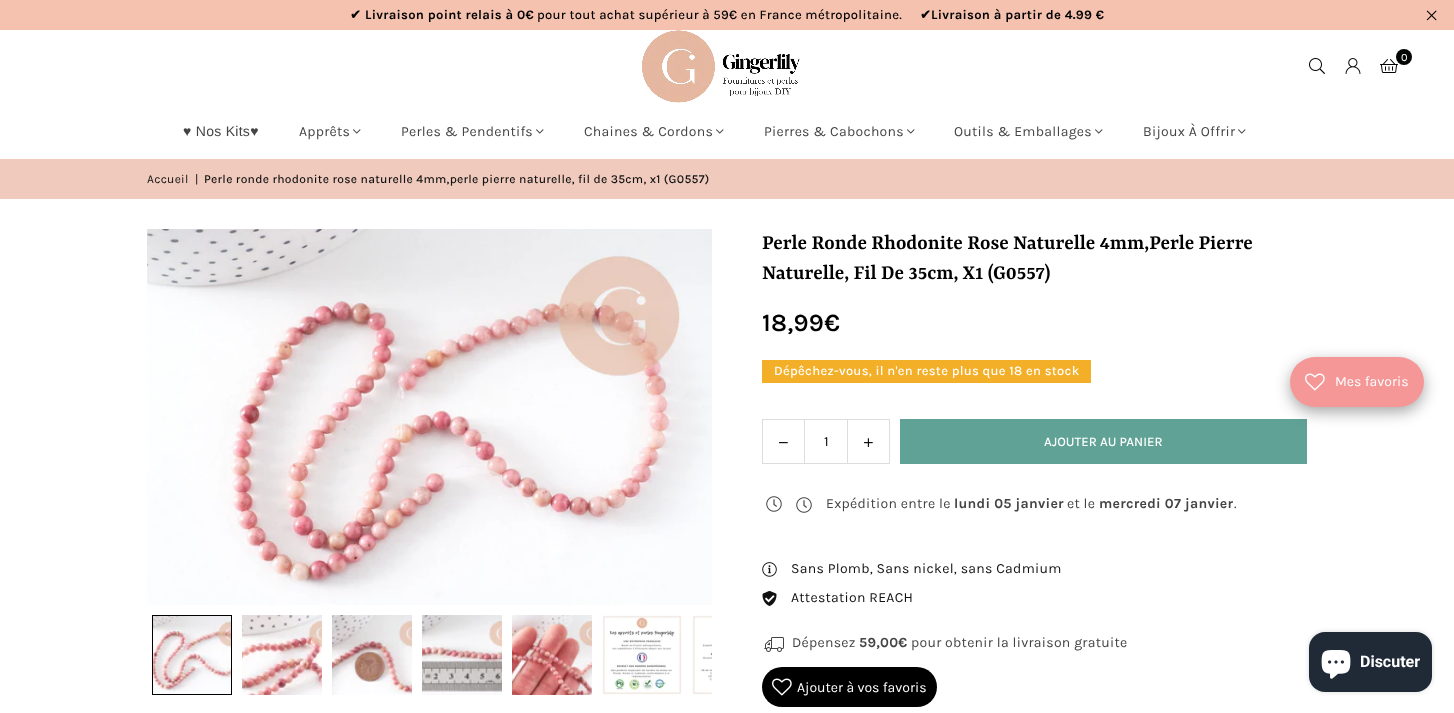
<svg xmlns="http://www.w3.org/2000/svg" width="1454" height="713">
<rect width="100%" height="100%" fill="#fff"/>
<rect width="1454" height="30" fill="#f5c2b0"/>
<text x="350" y="19" style="font-family:DejaVu Sans;font-size:13px;font-weight:bold;letter-spacing:0.28px;fill:#000">✔</text>
<text x="365" y="19" style="font-family:Karla;font-size:13px;font-weight:bold;letter-spacing:0.28px;fill:#000">Livraison point relais à 0€</text>
<text x="537" y="19" style="font-family:Karla;font-size:13px;font-weight:500;letter-spacing:0.28px;fill:#000">pour tout achat supérieur à 59€ en France métropolitaine.</text>
<text x="920" y="19" style="font-family:DejaVu Sans;font-size:13px;font-weight:bold;letter-spacing:0.28px;fill:#000">✔</text>
<text x="931" y="19" style="font-family:Karla;font-size:13px;font-weight:bold;letter-spacing:0.28px;fill:#000">Livraison à partir de 4.99 €</text>
<image x="1426" y="10" width="11" height="11" href="media/1.png"/>
<image x="642" y="30" width="159" height="73" href="media/2.png"/>
<image x="1309" y="58" width="16" height="16" href="media/3.png"/>
<image x="1345" y="58" width="16" height="16" href="media/4.png"/>
<image x="1380" y="59" width="18" height="14" href="media/5.png"/>
<circle cx="1404" cy="57" r="8" fill="#030505"/>
<text x="1401" y="61" style="font-family:Karla;font-size:11px;letter-spacing:0.28px;fill:#fff">0</text>
<text x="183" y="136" style="font-family:Liberation Sans;font-size:14px;letter-spacing:0.28px;fill:#444">♥︎ Nos Kits♥︎</text>
<text x="299" y="136" style="font-family:Karla;font-size:14px;letter-spacing:0.28px;fill:#444">Apprêts</text>
<image x="353" y="129" width="8" height="5" href="media/6.png"/>
<text x="401" y="136" style="font-family:Karla;font-size:14px;letter-spacing:0.28px;fill:#444">Perles &amp; Pendentifs</text>
<image x="536" y="129" width="8" height="5" href="media/6.png"/>
<text x="584" y="136" style="font-family:Karla;font-size:14px;letter-spacing:0.28px;fill:#444">Chaines &amp; Cordons</text>
<image x="716" y="129" width="8" height="5" href="media/6.png"/>
<text x="764" y="136" style="font-family:Karla;font-size:14px;letter-spacing:0.28px;fill:#444">Pierres &amp; Cabochons</text>
<image x="907" y="129" width="8" height="5" href="media/6.png"/>
<text x="954" y="136" style="font-family:Karla;font-size:14px;letter-spacing:0.28px;fill:#444">Outils &amp; Emballages</text>
<image x="1095" y="129" width="8" height="5" href="media/6.png"/>
<text x="1143" y="136" style="font-family:Karla;font-size:14px;letter-spacing:0.28px;fill:#444">Bijoux À Offrir</text>
<image x="1238" y="129" width="8" height="5" href="media/6.png"/>
<rect y="159" width="1454" height="40" fill="#efcabd"/>
<text x="147" y="183" style="font-family:Karla;font-size:12px;letter-spacing:0.28px;fill:#111">Accueil</text>
<text x="195" y="183" style="font-family:Karla;font-size:12px;letter-spacing:0.28px;fill:#111">|</text>
<text x="204" y="183" style="font-family:Karla;font-size:12px;font-weight:500;letter-spacing:0.28px;fill:#111">Perle ronde rhodonite rose naturelle 4mm,perle pierre naturelle, fil de 35cm, x1 (G0557)</text>
<image x="147" y="229" width="565" height="376" href="media/7.png"/>
<rect x="152.5" y="615.5" width="79" height="79" fill="none" stroke="#000"/>
<image x="153" y="616" width="78" height="78" href="media/8.png"/>
<image x="242" y="615" width="80" height="80" href="media/9.png"/>
<image x="332" y="615" width="80" height="80" href="media/10.png"/>
<image x="422" y="615" width="80" height="80" href="media/11.png"/>
<image x="512" y="615" width="80" height="80" href="media/12.png"/>
<image x="602" y="615" width="80" height="80" href="media/13.png"/>
<image x="692" y="615" width="20" height="80" href="media/14.png"/>
<text x="762" y="249" style="font-family:Yrsa;font-size:22px;font-weight:600;fill:#000">Perle Ronde Rhodonite Rose Naturelle 4mm,Perle Pierre</text>
<text x="762" y="279" style="font-family:Yrsa;font-size:22px;font-weight:600;fill:#000">Naturelle, Fil De 35cm, X1 (G0557)</text>
<text x="762" y="331" style="font-family:Karla;font-size:25px;font-weight:600;letter-spacing:0.28px;fill:#000">18,99€</text>
<rect x="762" y="360" width="329" height="23" fill="#f4af29"/>
<text x="774" y="375" style="font-family:Karla;font-size:13px;font-weight:500;letter-spacing:0.28px;fill:#fff">Dépêchez-vous, il n'en reste plus que 18 en stock</text>
<rect x="762.5" y="419.5" width="127" height="44" fill="none" stroke="#ddd"/>
<rect x="804" y="420" width="1" height="43" fill="#ddd"/>
<image x="779" y="442" width="9" height="2" href="media/15.png"/>
<text x="824" y="446" style="font-family:Karla;font-size:14px;fill:#000">1</text>
<rect x="847" y="420" width="1" height="43" fill="#ddd"/>
<image x="864" y="438" width="9" height="9" href="media/16.png"/>
<rect x="900" y="419" width="407" height="45" fill="#60a396"/>
<text x="1044" y="446" style="font-family:Karla;font-size:13px;font-weight:500;fill:#fff">AJOUTER AU PANIER</text>
<image x="766" y="496" width="16" height="16" href="media/17.png"/>
<image x="796" y="497" width="16" height="16" href="media/17.png"/>
<text x="826" y="508" style="font-family:Karla;font-size:14px;letter-spacing:0.28px;fill:#444">Expédition entre le</text>
<text x="954" y="508" style="font-family:Karla;font-size:14px;font-weight:bold;letter-spacing:0.28px;fill:#444">lundi 05 janvier</text>
<text x="1067" y="508" style="font-family:Karla;font-size:14px;letter-spacing:0.28px;fill:#444">et le</text>
<text x="1099" y="508" style="font-family:Karla;font-size:14px;font-weight:bold;letter-spacing:0.28px;fill:#444">mercredi 07 janvier</text>
<text x="1234" y="508" style="font-family:Karla;font-size:14px;letter-spacing:0.28px;fill:#444">.</text>
<image x="762" y="562" width="15" height="15" href="media/18.png"/>
<text x="791" y="573" style="font-family:Karla;font-size:14px;letter-spacing:0.28px;fill:#111">Sans Plomb, Sans nickel, sans Cadmium</text>
<image x="762" y="590" width="15" height="16" href="media/19.png"/>
<text x="791" y="602" style="font-family:Karla;font-size:14px;letter-spacing:0.28px;fill:#111">Attestation REACH</text>
<image x="764" y="637" width="20" height="15" href="media/20.png"/>
<text x="792" y="647" style="font-family:Karla;font-size:14px;letter-spacing:0.28px;fill:#444">Dépensez</text>
<text x="859" y="647" style="font-family:Karla;font-size:14px;font-weight:bold;letter-spacing:0.28px;fill:#444">59,00€</text>
<text x="911" y="647" style="font-family:Karla;font-size:14px;letter-spacing:0.28px;fill:#444">pour obtenir la livraison gratuite</text>
<rect x="762" y="667" width="175" height="40" rx="20" fill="#000"/>
<image x="772" y="678" width="20" height="18" href="media/21.png"/>
<text x="797" y="692" style="font-family:Karla;font-size:14px;fill:#fff">Ajouter à vos favoris</text>
<rect x="1290" y="362" width="134" height="50" rx="25" fill="#00000059" filter="blur(7.5px)"/>
<rect x="1290" y="357" width="134" height="50" rx="25" fill="#f59797"/>
<image x="1305" y="373" width="20" height="18" href="media/22.png"/>
<text x="1335" y="386" style="font-family:Karla;font-size:14px;fill:#fff">Mes favoris</text>
<rect x="1309" y="632" width="123" height="60" rx="16" fill="#00000026" filter="blur(2.5px)"/>
<rect x="1309" y="632" width="123" height="60" rx="16" fill="#202a36"/>
<image x="1321" y="650" width="30" height="29" href="media/23.png"/>
<text x="1360" y="667" style="font-family:Roboto;font-size:16px;font-weight:bold;fill:#fff">Discuter</text>
</svg>
